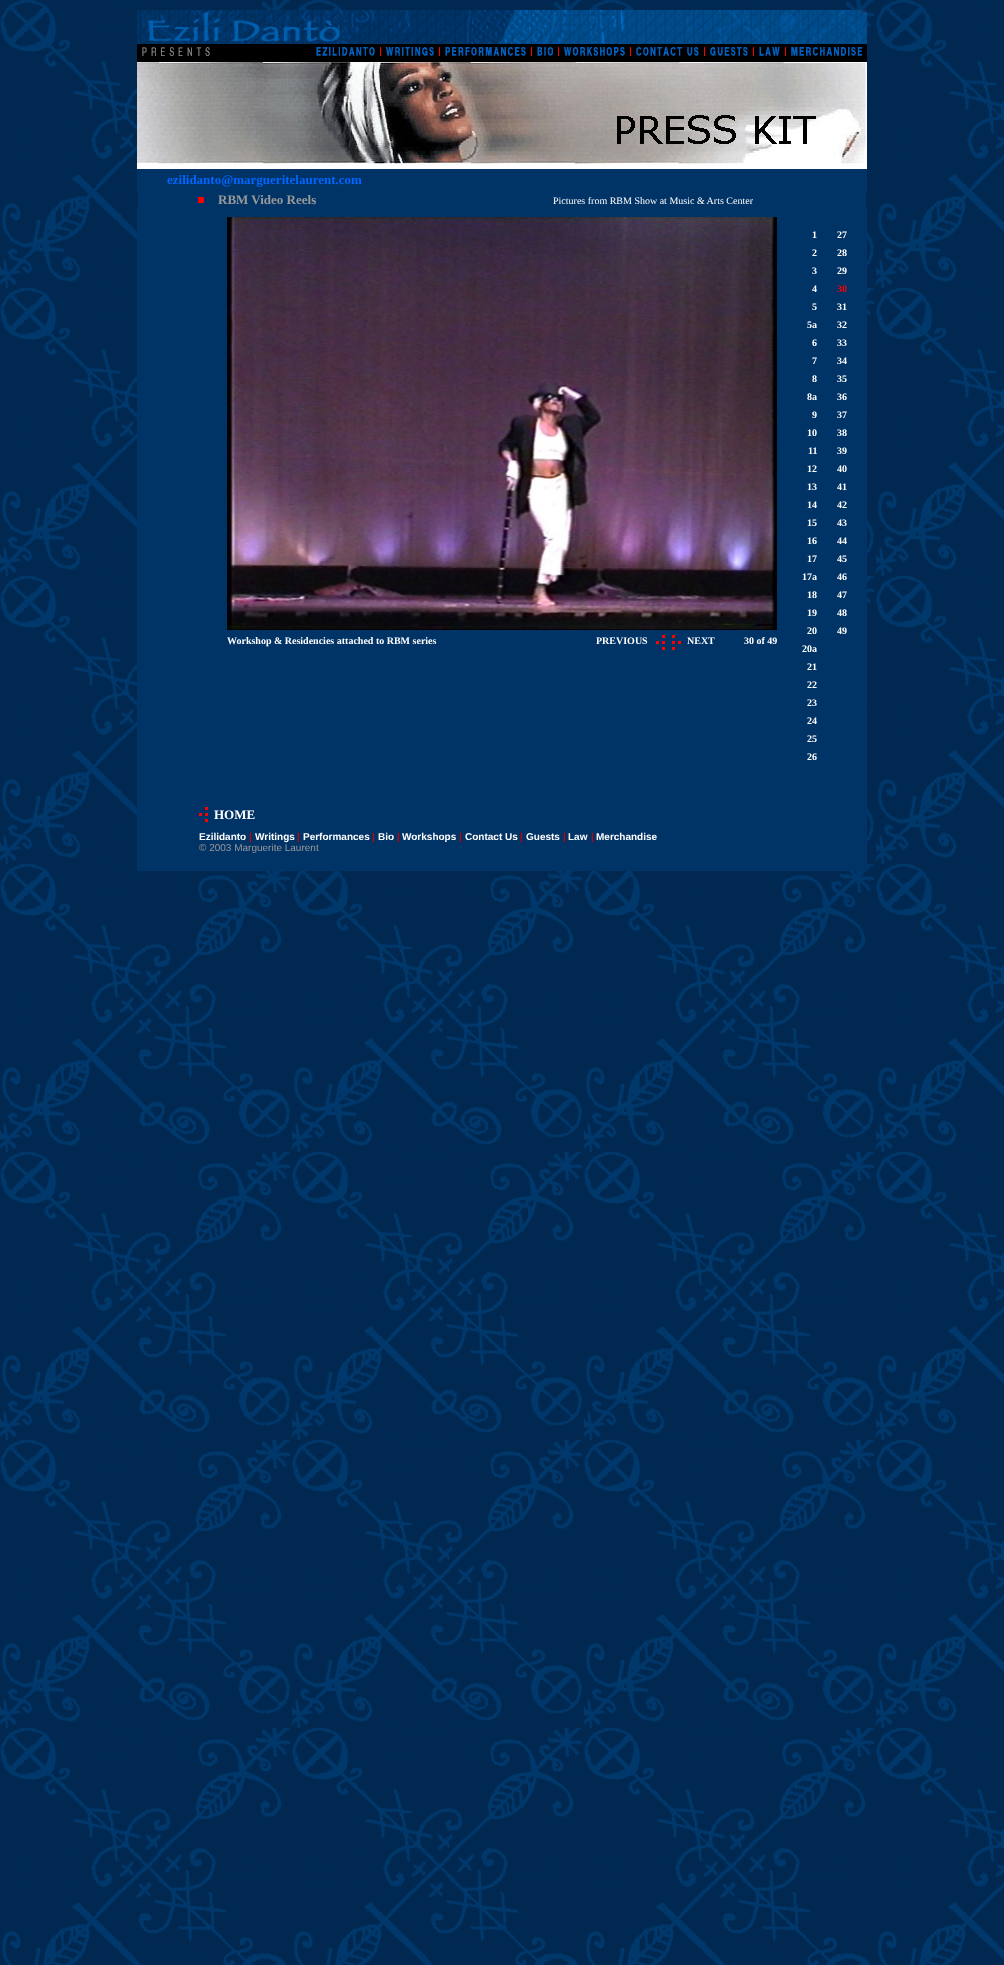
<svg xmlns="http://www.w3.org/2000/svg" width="1004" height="1965">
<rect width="100%" height="100%" fill="#fff"/>
<image x="0" y="0" width="1004" height="1965" href="media/1.png"/>
<image x="137" y="10" width="730" height="34" href="media/2.png"/>
<rect x="137" y="44" width="730" height="3" fill="#000"/>
<rect x="137" y="47" width="5" height="9" fill="#000"/>
<image x="142" y="47" width="68" height="9" href="media/3.png"/>
<rect x="210" y="47" width="106" height="9" fill="#000"/>
<image x="316" y="47" width="59" height="9" href="media/4.png"/>
<rect x="375" y="47" width="5" height="9" fill="#000"/>
<rect x="380" y="47" width="1" height="9" fill="#f00"/>
<rect x="381" y="47" width="5" height="9" fill="#000"/>
<image x="386" y="47" width="48" height="9" href="media/5.png"/>
<rect x="434" y="47" width="5" height="9" fill="#000"/>
<rect x="439" y="47" width="1" height="9" fill="#f00"/>
<rect x="440" y="47" width="5" height="9" fill="#000"/>
<image x="445" y="47" width="81" height="9" href="media/6.png"/>
<rect x="526" y="47" width="5" height="9" fill="#000"/>
<rect x="531" y="47" width="1" height="9" fill="#f00"/>
<rect x="532" y="47" width="5" height="9" fill="#000"/>
<image x="537" y="47" width="16" height="9" href="media/7.png"/>
<rect x="553" y="47" width="5" height="9" fill="#000"/>
<rect x="558" y="47" width="1" height="9" fill="#f00"/>
<rect x="559" y="47" width="5" height="9" fill="#000"/>
<image x="564" y="47" width="61" height="9" href="media/8.png"/>
<rect x="625" y="47" width="5" height="9" fill="#000"/>
<rect x="630" y="47" width="1" height="9" fill="#f00"/>
<rect x="631" y="47" width="5" height="9" fill="#000"/>
<image x="636" y="47" width="63" height="9" href="media/9.png"/>
<rect x="699" y="47" width="5" height="9" fill="#000"/>
<rect x="704" y="47" width="1" height="9" fill="#f00"/>
<rect x="705" y="47" width="5" height="9" fill="#000"/>
<image x="710" y="47" width="38" height="9" href="media/10.png"/>
<rect x="748" y="47" width="5" height="9" fill="#000"/>
<rect x="753" y="47" width="1" height="9" fill="#f00"/>
<rect x="754" y="47" width="5" height="9" fill="#000"/>
<image x="759" y="47" width="21" height="9" href="media/11.png"/>
<rect x="780" y="47" width="5" height="9" fill="#000"/>
<rect x="785" y="47" width="1" height="9" fill="#f00"/>
<rect x="786" y="47" width="5" height="9" fill="#000"/>
<image x="791" y="47" width="71" height="9" href="media/12.png"/>
<rect x="862" y="47" width="5" height="9" fill="#000"/>
<rect x="137" y="56" width="730" height="6" fill="#000"/>
<image x="137" y="62" width="730" height="107" href="media/13.png"/>
<rect x="137" y="169" width="730" height="23" fill="#036"/>
<text x="167" y="184" style="font-family:Liberation Serif;font-size:13px;font-weight:bold;fill:#06f">ezilidanto@margueritelaurent.com</text>
<rect x="138" y="192" width="728" height="16" fill="#036"/>
<rect x="198" y="197" width="6" height="6" fill="#f00"/>
<text x="218" y="204" style="font-family:Liberation Serif;font-size:13px;font-weight:bold;fill:#999">RBM Video Reels</text>
<text x="553" y="204" style="font-family:Liberation Serif;font-size:10px;fill:#fff">Pictures from RBM Show at Music &amp; Arts Center</text>
<rect x="137" y="208" width="730" height="6" fill="#036"/>
<rect x="137" y="214" width="730" height="3" fill="#036"/>
<rect x="137" y="217" width="90" height="570" fill="#036"/>
<rect x="227" y="630" width="550" height="157" fill="#036"/>
<image x="227" y="217" width="550" height="413" href="media/14.png"/>
<text x="227" y="644" style="font-family:Liberation Serif;font-size:10px;font-weight:bold;fill:#fff">Workshop &amp; Residencies attached to RBM series</text>
<text x="596" y="644" style="font-family:Liberation Serif;font-size:10px;font-weight:bold;fill:#fff">PREVIOUS</text>
<rect x="662" y="635" width="3" height="3" fill="#f00"/>
<rect x="656" y="641" width="3" height="3" fill="#f00"/>
<rect x="662" y="641" width="3" height="3" fill="#f00"/>
<rect x="662" y="647" width="3" height="3" fill="#f00"/>
<rect x="672" y="635" width="3" height="3" fill="#f00"/>
<rect x="672" y="641" width="3" height="3" fill="#f00"/>
<rect x="678" y="641" width="3" height="3" fill="#f00"/>
<rect x="672" y="647" width="3" height="3" fill="#f00"/>
<text x="687" y="644" style="font-family:Liberation Serif;font-size:10px;font-weight:bold;fill:#fff">NEXT</text>
<text x="744" y="644" style="font-family:Liberation Serif;font-size:10px;font-weight:bold;fill:#fff">30 of 49</text>
<rect x="777" y="217" width="90" height="570" fill="#036"/>
<text x="812" y="238" style="font-family:Liberation Serif;font-size:10px;font-weight:bold;fill:#fff">1</text>
<text x="837" y="238" style="font-family:Liberation Serif;font-size:10px;font-weight:bold;fill:#fff">27</text>
<text x="812" y="256" style="font-family:Liberation Serif;font-size:10px;font-weight:bold;fill:#fff">2</text>
<text x="837" y="256" style="font-family:Liberation Serif;font-size:10px;font-weight:bold;fill:#fff">28</text>
<text x="812" y="274" style="font-family:Liberation Serif;font-size:10px;font-weight:bold;fill:#fff">3</text>
<text x="837" y="274" style="font-family:Liberation Serif;font-size:10px;font-weight:bold;fill:#fff">29</text>
<text x="812" y="292" style="font-family:Liberation Serif;font-size:10px;font-weight:bold;fill:#fff">4</text>
<text x="837" y="292" style="font-family:Liberation Serif;font-size:10px;font-weight:bold;fill:#f00">30</text>
<text x="812" y="310" style="font-family:Liberation Serif;font-size:10px;font-weight:bold;fill:#fff">5</text>
<text x="837" y="310" style="font-family:Liberation Serif;font-size:10px;font-weight:bold;fill:#fff">31</text>
<text x="807" y="328" style="font-family:Liberation Serif;font-size:10px;font-weight:bold;fill:#fff">5a</text>
<text x="837" y="328" style="font-family:Liberation Serif;font-size:10px;font-weight:bold;fill:#fff">32</text>
<text x="812" y="346" style="font-family:Liberation Serif;font-size:10px;font-weight:bold;fill:#fff">6</text>
<text x="837" y="346" style="font-family:Liberation Serif;font-size:10px;font-weight:bold;fill:#fff">33</text>
<text x="812" y="364" style="font-family:Liberation Serif;font-size:10px;font-weight:bold;fill:#fff">7</text>
<text x="837" y="364" style="font-family:Liberation Serif;font-size:10px;font-weight:bold;fill:#fff">34</text>
<text x="812" y="382" style="font-family:Liberation Serif;font-size:10px;font-weight:bold;fill:#fff">8</text>
<text x="837" y="382" style="font-family:Liberation Serif;font-size:10px;font-weight:bold;fill:#fff">35</text>
<text x="807" y="400" style="font-family:Liberation Serif;font-size:10px;font-weight:bold;fill:#fff">8a</text>
<text x="837" y="400" style="font-family:Liberation Serif;font-size:10px;font-weight:bold;fill:#fff">36</text>
<text x="812" y="418" style="font-family:Liberation Serif;font-size:10px;font-weight:bold;fill:#fff">9</text>
<text x="837" y="418" style="font-family:Liberation Serif;font-size:10px;font-weight:bold;fill:#fff">37</text>
<text x="807" y="436" style="font-family:Liberation Serif;font-size:10px;font-weight:bold;fill:#fff">10</text>
<text x="837" y="436" style="font-family:Liberation Serif;font-size:10px;font-weight:bold;fill:#fff">38</text>
<text x="808" y="454" style="font-family:Liberation Serif;font-size:10px;font-weight:bold;fill:#fff">11</text>
<text x="837" y="454" style="font-family:Liberation Serif;font-size:10px;font-weight:bold;fill:#fff">39</text>
<text x="807" y="472" style="font-family:Liberation Serif;font-size:10px;font-weight:bold;fill:#fff">12</text>
<text x="837" y="472" style="font-family:Liberation Serif;font-size:10px;font-weight:bold;fill:#fff">40</text>
<text x="807" y="490" style="font-family:Liberation Serif;font-size:10px;font-weight:bold;fill:#fff">13</text>
<text x="837" y="490" style="font-family:Liberation Serif;font-size:10px;font-weight:bold;fill:#fff">41</text>
<text x="807" y="508" style="font-family:Liberation Serif;font-size:10px;font-weight:bold;fill:#fff">14</text>
<text x="837" y="508" style="font-family:Liberation Serif;font-size:10px;font-weight:bold;fill:#fff">42</text>
<text x="807" y="526" style="font-family:Liberation Serif;font-size:10px;font-weight:bold;fill:#fff">15</text>
<text x="837" y="526" style="font-family:Liberation Serif;font-size:10px;font-weight:bold;fill:#fff">43</text>
<text x="807" y="544" style="font-family:Liberation Serif;font-size:10px;font-weight:bold;fill:#fff">16</text>
<text x="837" y="544" style="font-family:Liberation Serif;font-size:10px;font-weight:bold;fill:#fff">44</text>
<text x="807" y="562" style="font-family:Liberation Serif;font-size:10px;font-weight:bold;fill:#fff">17</text>
<text x="837" y="562" style="font-family:Liberation Serif;font-size:10px;font-weight:bold;fill:#fff">45</text>
<text x="802" y="580" style="font-family:Liberation Serif;font-size:10px;font-weight:bold;fill:#fff">17a</text>
<text x="837" y="580" style="font-family:Liberation Serif;font-size:10px;font-weight:bold;fill:#fff">46</text>
<text x="807" y="598" style="font-family:Liberation Serif;font-size:10px;font-weight:bold;fill:#fff">18</text>
<text x="837" y="598" style="font-family:Liberation Serif;font-size:10px;font-weight:bold;fill:#fff">47</text>
<text x="807" y="616" style="font-family:Liberation Serif;font-size:10px;font-weight:bold;fill:#fff">19</text>
<text x="837" y="616" style="font-family:Liberation Serif;font-size:10px;font-weight:bold;fill:#fff">48</text>
<text x="807" y="634" style="font-family:Liberation Serif;font-size:10px;font-weight:bold;fill:#fff">20</text>
<text x="837" y="634" style="font-family:Liberation Serif;font-size:10px;font-weight:bold;fill:#fff">49</text>
<text x="802" y="652" style="font-family:Liberation Serif;font-size:10px;font-weight:bold;fill:#fff">20a</text>
<text x="807" y="670" style="font-family:Liberation Serif;font-size:10px;font-weight:bold;fill:#fff">21</text>
<text x="807" y="688" style="font-family:Liberation Serif;font-size:10px;font-weight:bold;fill:#fff">22</text>
<text x="807" y="706" style="font-family:Liberation Serif;font-size:10px;font-weight:bold;fill:#fff">23</text>
<text x="807" y="724" style="font-family:Liberation Serif;font-size:10px;font-weight:bold;fill:#fff">24</text>
<text x="807" y="742" style="font-family:Liberation Serif;font-size:10px;font-weight:bold;fill:#fff">25</text>
<text x="807" y="760" style="font-family:Liberation Serif;font-size:10px;font-weight:bold;fill:#fff">26</text>
<rect x="137" y="787" width="730" height="84" fill="#036"/>
<rect x="205" y="807" width="3" height="3" fill="#f00"/>
<rect x="199" y="813" width="3" height="3" fill="#f00"/>
<rect x="205" y="813" width="3" height="3" fill="#f00"/>
<rect x="205" y="819" width="3" height="3" fill="#f00"/>
<text x="214" y="819" style="font-family:Liberation Serif;font-size:13px;font-weight:bold;fill:#fff">HOME</text>
<text x="199" y="840" style="font-family:Liberation Sans;font-size:10px;font-weight:bold;fill:#fff">Ezilidanto</text>
<text x="249" y="840" style="font-family:Liberation Sans;font-size:10px;font-weight:bold;fill:#c00">|</text>
<text x="255" y="840" style="font-family:Liberation Sans;font-size:10px;font-weight:bold;fill:#fff">Writings</text>
<text x="297" y="840" style="font-family:Liberation Sans;font-size:10px;font-weight:bold;fill:#c00">|</text>
<text x="303" y="840" style="font-family:Liberation Sans;font-size:10px;font-weight:bold;fill:#fff">Performances</text>
<text x="372" y="840" style="font-family:Liberation Sans;font-size:10px;font-weight:bold;fill:#c00">|</text>
<text x="378" y="840" style="font-family:Liberation Sans;font-size:10px;font-weight:bold;fill:#fff">Bio</text>
<text x="397" y="840" style="font-family:Liberation Sans;font-size:10px;font-weight:bold;fill:#c00">|</text>
<text x="402" y="840" style="font-family:Liberation Sans;font-size:10px;font-weight:bold;fill:#fff">Workshops</text>
<text x="459" y="840" style="font-family:Liberation Sans;font-size:10px;font-weight:bold;fill:#c00">|</text>
<text x="465" y="840" style="font-family:Liberation Sans;font-size:10px;font-weight:bold;fill:#fff">Contact Us</text>
<text x="520" y="840" style="font-family:Liberation Sans;font-size:10px;font-weight:bold;fill:#c00">|</text>
<text x="526" y="840" style="font-family:Liberation Sans;font-size:10px;font-weight:bold;fill:#fff">Guests</text>
<text x="563" y="840" style="font-family:Liberation Sans;font-size:10px;font-weight:bold;fill:#c00">|</text>
<text x="568" y="840" style="font-family:Liberation Sans;font-size:10px;font-weight:bold;fill:#fff">Law</text>
<text x="591" y="840" style="font-family:Liberation Sans;font-size:10px;font-weight:bold;fill:#c00">|</text>
<text x="596" y="840" style="font-family:Liberation Sans;font-size:10px;font-weight:bold;fill:#fff">Merchandise</text>
<text x="199" y="851" style="font-family:Liberation Sans;font-size:10px;fill:#999">© 2003 Marguerite Laurent</text>
</svg>
